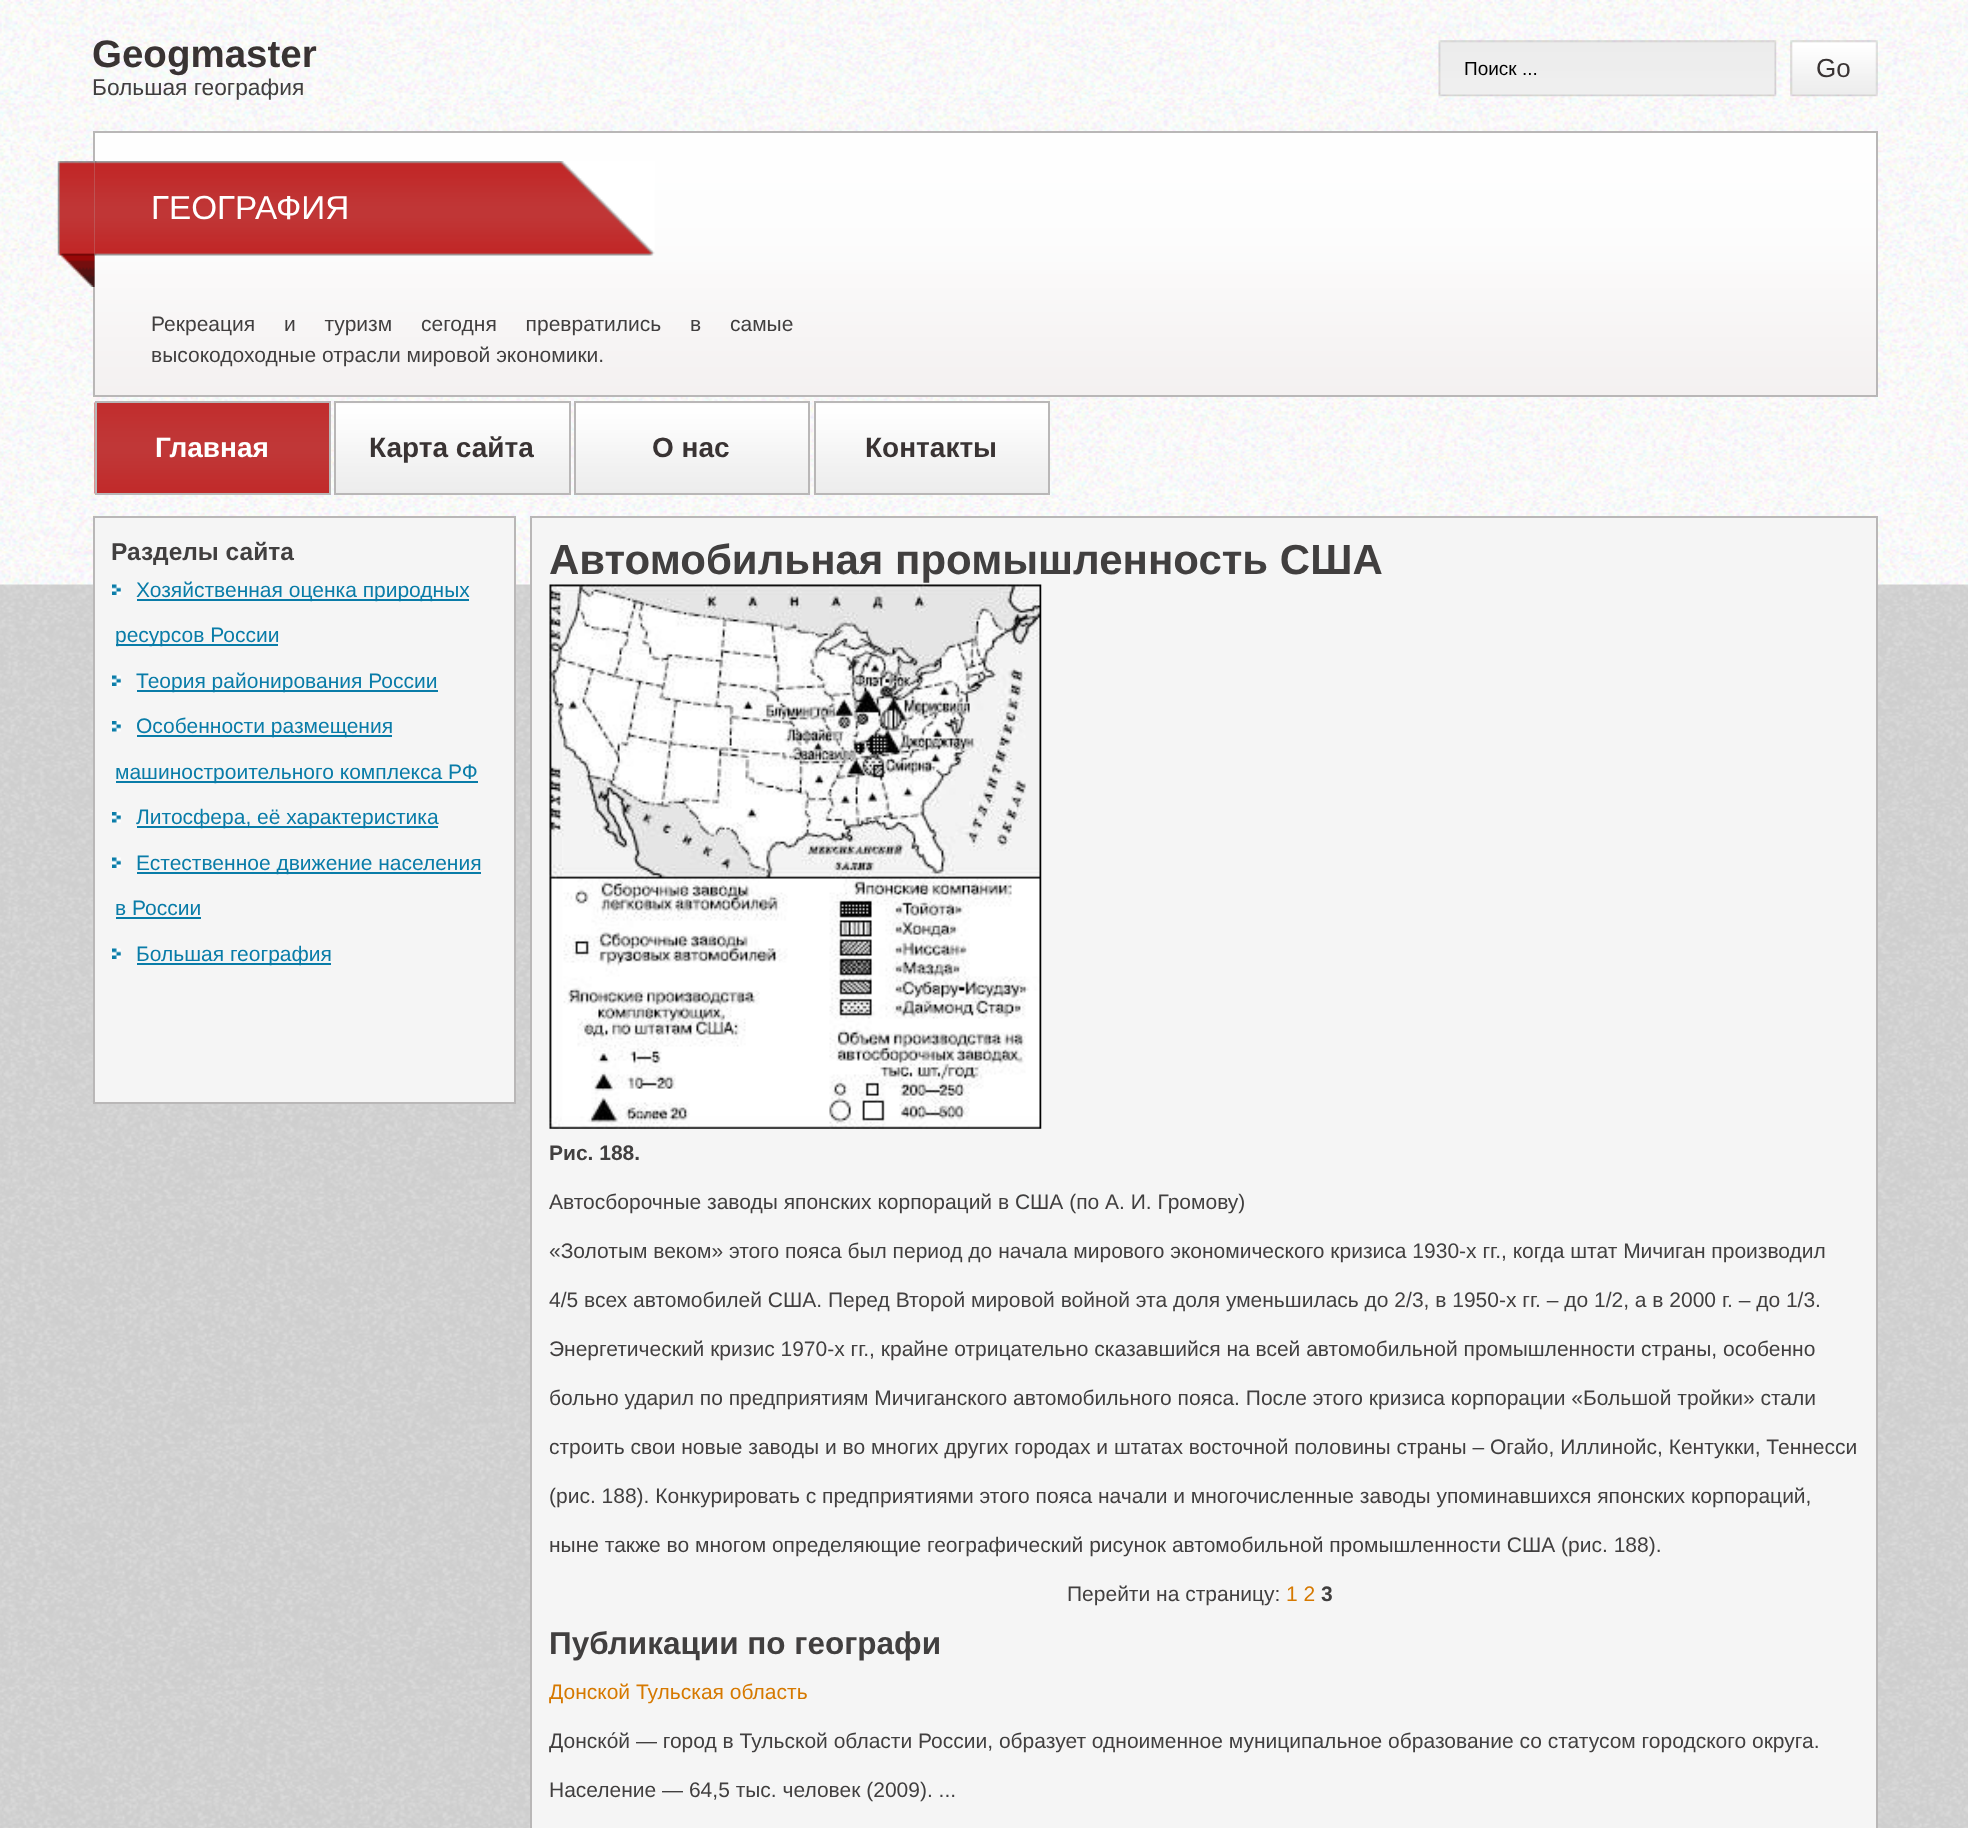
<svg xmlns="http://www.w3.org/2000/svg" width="1968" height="1828">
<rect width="100%" height="100%" fill="#fff"/>
<image x="0" y="584" width="1968" height="1244" href="media/1.png"/>
<image x="0" y="0" width="1968" height="585" href="media/2.png"/>
<text x="92" y="67" style="font-family:Liberation Sans;font-size:38.5px;font-weight:bold;fill:#393333">Geogmaster</text>
<text x="92" y="95" style="font-family:Liberation Sans;font-size:22.75px;fill:#413f3f">Большая география</text>
<image x="1438" y="40" width="339" height="57" href="media/3.png"/>
<text x="1464" y="75" style="font-family:Liberation Sans;font-size:19px;fill:#000">Поиск ...</text>
<image x="1790" y="40" width="88" height="57" href="media/4.png"/>
<text x="1816" y="77" style="font-family:Liberation Sans;font-size:26px;fill:#393333">Go</text>
<image x="92" y="131" width="1784" height="265" href="media/5.png"/>
<rect x="94" y="132" width="1783" height="264" fill="none" stroke="#b9b7b7" stroke-width="2"/>
<image x="94" y="161" width="561" height="95" href="media/6.png"/>
<image x="57" y="161" width="38" height="126" href="media/7.png"/>
<text x="151" y="219" style="font-family:Liberation Sans;font-size:33.25px;fill:#fff">ГЕОГРАФИЯ</text>
<text x="151" y="331" word-spacing="23" style="font-family:Liberation Sans;font-size:21px;fill:#413f3f">Рекреация и туризм сегодня превратились в самые</text>
<text x="151" y="362" style="font-family:Liberation Sans;font-size:21px;fill:#413f3f">высокодоходные отрасли мировой экономики.</text>
<image x="94" y="402" width="235" height="92" href="media/8.png"/>
<rect x="96" y="402" width="234" height="92" fill="none" stroke="#b9b7b7" stroke-width="2"/>
<text x="155" y="457" style="font-family:Liberation Sans;font-size:28px;font-weight:bold;fill:#fff">Главная</text>
<image x="336" y="403" width="233" height="90" href="media/9.png"/>
<rect x="335" y="402" width="235" height="92" fill="none" stroke="#b9b7b7" stroke-width="2"/>
<text x="369" y="457" style="font-family:Liberation Sans;font-size:28px;font-weight:bold;fill:#393333">Карта сайта</text>
<image x="576" y="402" width="235" height="92" href="media/10.png"/>
<rect x="575" y="402" width="234" height="92" fill="none" stroke="#b9b7b7" stroke-width="2"/>
<text x="652" y="457" style="font-family:Liberation Sans;font-size:28px;font-weight:bold;fill:#393333">О нас</text>
<image x="813" y="402" width="235" height="92" href="media/11.png"/>
<rect x="815" y="402" width="234" height="92" fill="none" stroke="#b9b7b7" stroke-width="2"/>
<text x="865" y="457" style="font-family:Liberation Sans;font-size:28px;font-weight:bold;fill:#393333">Контакты</text>
<rect x="94" y="517" width="421" height="586" fill="#f5f5f5" stroke="#b9b7b7" stroke-width="2"/>
<text x="111" y="560" style="font-family:Liberation Sans;font-size:24.5px;font-weight:bold;fill:#413f3f">Разделы сайта</text>
<image x="112" y="584" width="9" height="11" href="media/12.png"/>
<rect x="137" y="599" width="332" height="2" fill="#097ca8"/>
<text x="136" y="597" style="font-family:Liberation Sans;font-size:21px;fill:#097ca8">Хозяйственная оценка природных</text>
<rect x="116" y="644" width="162" height="2" fill="#097ca8"/>
<text x="115" y="642" style="font-family:Liberation Sans;font-size:21px;fill:#097ca8">ресурсов России</text>
<image x="112" y="675" width="9" height="11" href="media/12.png"/>
<rect x="137" y="690" width="301" height="2" fill="#097ca8"/>
<text x="136" y="688" style="font-family:Liberation Sans;font-size:21px;fill:#097ca8">Теория районирования России</text>
<image x="112" y="721" width="9" height="11" href="media/13.png"/>
<rect x="137" y="735" width="255" height="2" fill="#097ca8"/>
<text x="136" y="733" style="font-family:Liberation Sans;font-size:21px;fill:#097ca8">Особенности размещения</text>
<rect x="116" y="781" width="362" height="2" fill="#097ca8"/>
<text x="115" y="779" style="font-family:Liberation Sans;font-size:21px;fill:#097ca8">машиностроительного комплекса РФ</text>
<image x="112" y="812" width="9" height="11" href="media/13.png"/>
<rect x="137" y="826" width="301" height="2" fill="#097ca8"/>
<text x="136" y="824" style="font-family:Liberation Sans;font-size:21px;fill:#097ca8">Литосфера, её характеристика</text>
<image x="112" y="857" width="9" height="11" href="media/12.png"/>
<rect x="137" y="872" width="344" height="2" fill="#097ca8"/>
<text x="136" y="870" style="font-family:Liberation Sans;font-size:21px;fill:#097ca8">Естественное движение населения</text>
<text x="115" y="915" style="font-family:Liberation Sans;font-size:21px;fill:#097ca8">в России</text>
<rect x="116" y="917" width="85" height="2" fill="#097ca8"/>
<image x="112" y="948" width="9" height="11" href="media/12.png"/>
<rect x="137" y="963" width="194" height="2" fill="#097ca8"/>
<text x="136" y="961" style="font-family:Liberation Sans;font-size:21px;fill:#097ca8">Большая география</text>
<rect x="531" y="517" width="1346" height="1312" fill="#f5f5f5" stroke="#b9b7b7" stroke-width="2"/>
<text x="549" y="574" style="font-family:Liberation Sans;font-size:42px;font-weight:bold;fill:#413f3f">Автомобильная промышленность США</text>
<image x="549" y="584" width="493" height="545" href="media/14.png"/>
<text x="549" y="1160" style="font-family:Liberation Sans;font-size:21px;font-weight:bold;fill:#413f3f">Рис. 188.</text>
<text x="549" y="1209" style="font-family:Liberation Sans;font-size:21px;fill:#413f3f">Автосборочные заводы японских корпораций в США (по А. И. Громову)</text>
<text x="549" y="1258" style="font-family:Liberation Sans;font-size:21px;fill:#413f3f">«Золотым веком» этого пояса был период до начала мирового экономического кризиса 1930-х гг., когда штат Мичиган производил</text>
<text x="549" y="1307" style="font-family:Liberation Sans;font-size:21px;fill:#413f3f">4/5 всех автомобилей США. Перед Второй мировой войной эта доля уменьшилась до 2/3, в 1950-х гг. – до 1/2, а в 2000 г. – до 1/3.</text>
<text x="549" y="1356" style="font-family:Liberation Sans;font-size:21px;fill:#413f3f">Энергетический кризис 1970-х гг., крайне отрицательно сказавшийся на всей автомобильной промышленности страны, особенно</text>
<text x="549" y="1405" style="font-family:Liberation Sans;font-size:21px;fill:#413f3f">больно ударил по предприятиям Мичиганского автомобильного пояса. После этого кризиса корпорации «Большой тройки» стали</text>
<text x="549" y="1454" style="font-family:Liberation Sans;font-size:21px;fill:#413f3f">строить свои новые заводы и во многих других городах и штатах восточной половины страны – Огайо, Иллинойс, Кентукки, Теннесси</text>
<text x="549" y="1503" style="font-family:Liberation Sans;font-size:21px;fill:#413f3f">(рис. 188). Конкурировать с предприятиями этого пояса начали и многочисленные заводы упоминавшихся японских корпораций,</text>
<text x="549" y="1552" style="font-family:Liberation Sans;font-size:21px;fill:#413f3f">ныне также во многом определяющие географический рисунок автомобильной промышленности США (рис. 188).</text>
<text x="1067" y="1601" style="font-family:Liberation Sans;font-size:21px;fill:#413f3f">Перейти на страницу:</text>
<text x="1286" y="1601" style="font-family:Liberation Sans;font-size:21px;fill:#d67900">1 2</text>
<text x="1321" y="1601" style="font-family:Liberation Sans;font-size:21px;font-weight:bold;fill:#413f3f">3</text>
<text x="549" y="1654" style="font-family:Liberation Sans;font-size:31.5px;font-weight:bold;fill:#413f3f">Публикации по географи</text>
<text x="549" y="1699" style="font-family:Liberation Sans;font-size:21px;fill:#d67900">Донской Тульская область</text>
<text x="549" y="1748" style="font-family:Liberation Sans;font-size:21px;fill:#413f3f">Донско́й — город в Тульской области России, образует одноименное муниципальное образование со статусом городского округа.</text>
<text x="549" y="1797" style="font-family:Liberation Sans;font-size:21px;fill:#413f3f">Население — 64,5 тыс. человек (2009). ...</text>
</svg>
